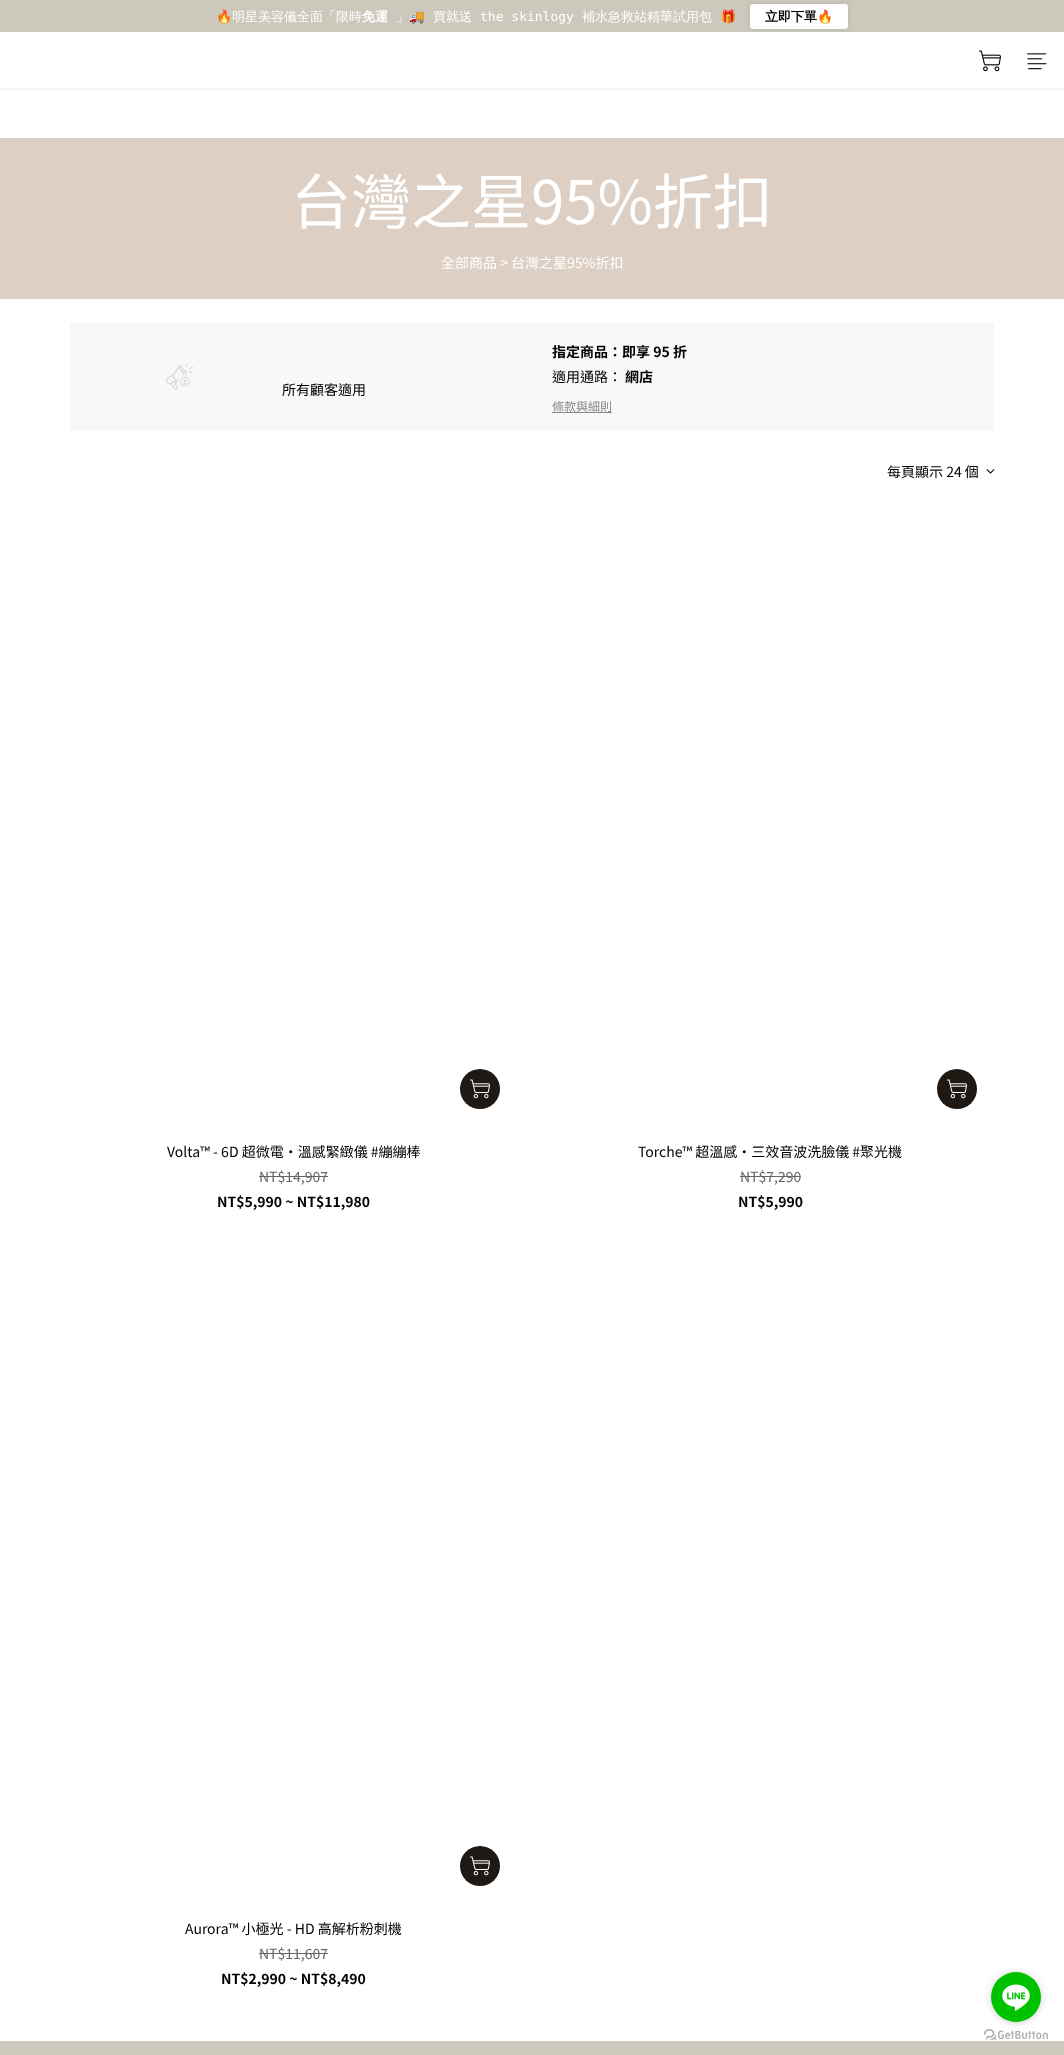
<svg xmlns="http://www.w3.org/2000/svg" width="1064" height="2055">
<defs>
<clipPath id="clip1"><rect x="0" y="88" width="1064" height="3"/></clipPath>
</defs>
<rect width="100%" height="100%" fill="#fff"/>
<g clip-path="url(#clip1)">
<rect y="34" width="1064" height="56" fill="#0000000f" filter="blur(3px)"/>
</g>
<rect width="1064" height="32" fill="#ccc8bc"/>
<text x="216" y="21" style="font-family:Noto Color Emoji;font-size:13px;fill:#fff">🔥</text>
<text x="232" y="21" style="font-family:WenQuanYi Zen Hei;font-size:13px;font-weight:500;fill:#fff">明星美容儀全面「限時</text>
<text x="362" y="21" style="font-family:WenQuanYi Zen Hei;font-size:13px;font-weight:bold;fill:#fff">免運</text>
<text x="396" y="21" style="font-family:WenQuanYi Zen Hei;font-size:13px;font-weight:500;fill:#fff">」</text>
<text x="409" y="21" style="font-family:Noto Color Emoji;font-size:13px;fill:#fff">🚚</text>
<text x="433" y="21" style="font-family:WenQuanYi Zen Hei;font-size:13px;font-weight:500;fill:#fff">買就送</text>
<text x="480" y="21" style="font-family:DejaVu Sans Mono;font-size:13px;fill:#fff">the skinlogy</text>
<text x="582" y="21" style="font-family:WenQuanYi Zen Hei;font-size:13px;font-weight:500;fill:#fff">補水急救站精華試用包</text>
<text x="720" y="21" style="font-family:Noto Color Emoji;font-size:13px;fill:#fff">🎁</text>
<rect x="750" y="4" width="98" height="25" rx="3" fill="#0000001a" filter="blur(2.5px)"/>
<rect x="750" y="4" width="98" height="25" rx="3" fill="#fff"/>
<text x="765" y="21" style="font-family:WenQuanYi Zen Hei;font-size:13px;font-weight:bold;fill:#000">立即下單</text>
<text x="817" y="21" style="font-family:Noto Color Emoji;font-size:13px;font-weight:bold;fill:#000">🔥</text>
<image x="979" y="50" width="22" height="22" href="media/1.png"/>
<image x="1027" y="53" width="20" height="17" href="media/2.png"/>
<rect y="138" width="1064" height="161" fill="#ddcfc4"/>
<text x="291" y="224" style="font-family:Noto Sans TC;font-size:60px;fill:#fff">台灣之星95%折扣</text>
<text x="441" y="268" style="font-family:Noto Sans TC;font-size:14px;fill:#fff">全部商品 &gt; 台灣之星95%折扣</text>
<rect x="70" y="323" width="924" height="108" fill="#f8f8f8"/>
<image x="166" y="364" width="27" height="26" href="media/3.png"/>
<text x="282" y="395" style="font-family:Noto Sans TC;font-size:14px;fill:#000">所有顧客適用</text>
<text x="552" y="357" style="font-family:Noto Sans TC;font-size:14px;font-weight:bold;fill:#000">指定商品：即享 95 折</text>
<text x="552" y="382" style="font-family:Noto Sans TC;font-size:14px;fill:#000">適用通路：</text>
<text x="625" y="382" style="font-family:Noto Sans TC;font-size:14px;font-weight:bold;fill:#000">網店</text>
<text x="552" y="411" style="font-family:Noto Sans TC;font-size:12px;fill:#888">條款與細則</text>
<rect x="552" y="412" width="60" height="1" fill="#888"/>
<text x="887" y="477" style="font-family:Noto Sans TC;font-size:14px;fill:#000">每頁顯示 24 個</text>
<image x="986" y="469" width="9" height="5" href="media/4.png"/>
<circle cx="480" cy="1089" r="20" fill="#201913"/>
<image x="470" y="1079" width="20" height="20" href="media/5.png"/>
<text x="167" y="1157" style="font-family:Noto Sans TC;font-size:14px;fill:#000">Volta™ - 6D 超微電・溫感緊緻儀 #繃繃棒</text>
<text x="259" y="1182" style="font-family:Noto Sans TC;font-size:14px;fill:#666">NT$14,907</text>
<rect x="259" y="1176" width="69" height="1" fill="#666"/>
<text x="217" y="1207" style="font-family:Noto Sans TC;font-size:14px;font-weight:bold;fill:#000">NT$5,990 ~ NT$11,980</text>
<circle cx="957" cy="1089" r="20" fill="#201913"/>
<image x="947" y="1079" width="20" height="20" href="media/5.png"/>
<text x="638" y="1157" style="font-family:Noto Sans TC;font-size:14px;fill:#000">Torche™ 超溫感・三效音波洗臉儀 #聚光機</text>
<text x="740" y="1182" style="font-family:Noto Sans TC;font-size:14px;fill:#666">NT$7,290</text>
<rect x="740" y="1176" width="61" height="1" fill="#666"/>
<text x="738" y="1207" style="font-family:Noto Sans TC;font-size:14px;font-weight:bold;fill:#000">NT$5,990</text>
<circle cx="480" cy="1866" r="20" fill="#201913"/>
<image x="470" y="1856" width="20" height="20" href="media/5.png"/>
<text x="185" y="1934" style="font-family:Noto Sans TC;font-size:14px;fill:#000">Aurora™ 小極光 - HD 高解析粉刺機</text>
<text x="259" y="1959" style="font-family:Noto Sans TC;font-size:14px;fill:#666">NT$11,607</text>
<rect x="259" y="1953" width="69" height="1" fill="#666"/>
<text x="221" y="1984" style="font-family:Noto Sans TC;font-size:14px;font-weight:bold;fill:#000">NT$2,990 ~ NT$8,490</text>
<image x="984" y="2029" width="64" height="11" href="media/7.png"/>
<rect x="991" y="1973" width="50" height="50" rx="25" fill="#88888866" filter="blur(3.5px)"/>
<circle cx="1016" cy="1997" r="25" fill="#00c300"/>
<image x="1002" y="1984" width="28" height="27" href="media/6.png"/>
<rect y="2041" width="1064" height="14" fill="#ccc8bc"/>
<rect x="47" y="2041" width="970" height="1" fill="#d0ccc1"/>
</svg>
